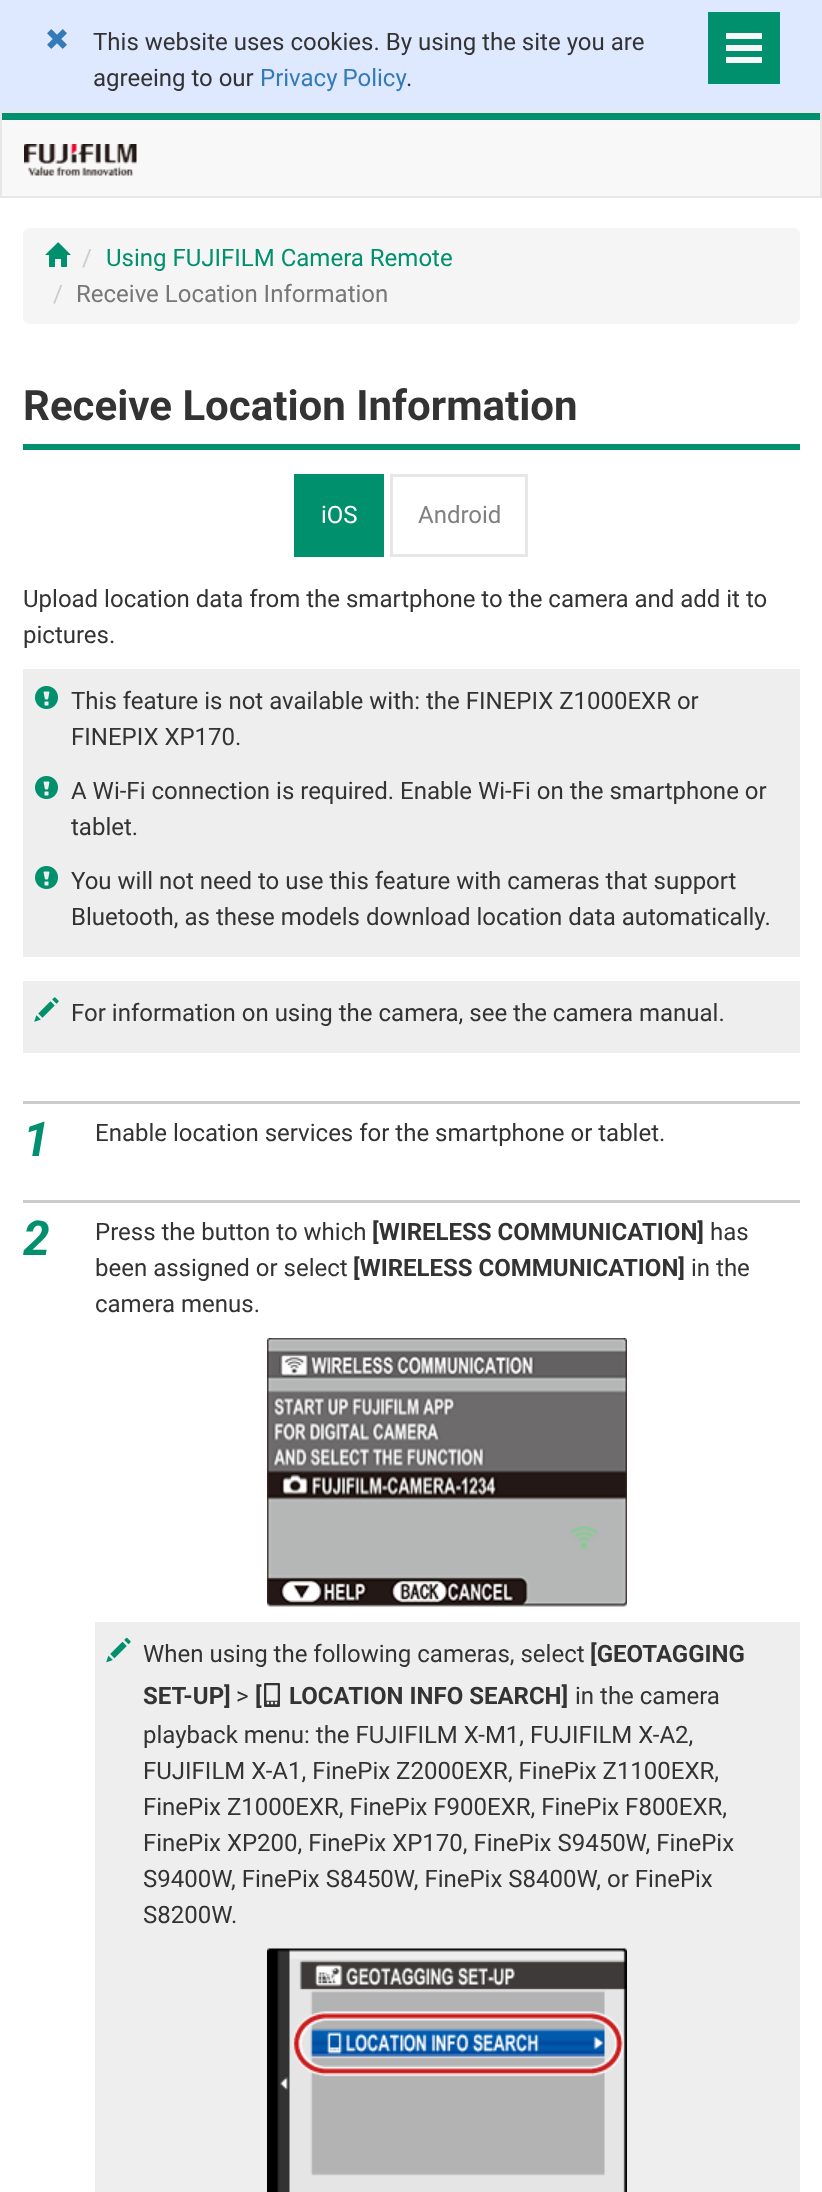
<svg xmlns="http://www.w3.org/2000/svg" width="822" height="2192">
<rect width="100%" height="100%" fill="#fff"/>
<rect width="822" height="111" fill="#dee8ff"/>
<rect x="708" y="12" width="72" height="72" fill="#00906d"/>
<rect x="726" y="45" width="36" height="6" fill="#f8f8f8"/>
<rect x="726" y="33" width="36" height="6" fill="#f8f8f8"/>
<rect x="726" y="57" width="36" height="6" fill="#f8f8f8"/>
<image x="47" y="29" width="20" height="20" href="media/1.png"/>
<text x="93" y="50" style="font-family:Roboto;font-size:24px;fill:#333">This website uses cookies. By using the site you are</text>
<text x="93" y="86" style="font-family:Roboto;font-size:24px;fill:#333">agreeing to our</text>
<text x="260" y="86" word-spacing="-1" style="font-family:Roboto;font-size:24px;fill:#337ab7">Privacy Policy</text>
<text x="406" y="86" style="font-family:Roboto;font-size:24px;fill:#333">.</text>
<rect x="2" y="120" width="818" height="76" fill="#f8f8f8"/>
<rect y="113" width="822" height="7" fill="#01906d"/>
<rect x="1" y="112" width="820" height="85" fill="none" stroke="#e7e7e7" stroke-width="2"/>
<image x="24" y="144" width="113" height="32" href="media/2.png"/>
<rect x="23" y="228" width="777" height="96" rx="6" fill="#f5f5f5"/>
<image x="45" y="242" width="26" height="25" href="media/3.png"/>
<text x="82" y="266" style="font-family:Roboto;font-size:24px;fill:#ccc">/</text>
<text x="106" y="266" style="font-family:Roboto;font-size:24px;fill:#00906d">Using FUJIFILM Camera Remote</text>
<text x="53" y="302" style="font-family:Roboto;font-size:24px;fill:#ccc">/</text>
<text x="76" y="302" style="font-family:Roboto;font-size:24px;fill:#777">Receive Location Information</text>
<rect x="23" y="444" width="777" height="6" fill="#00906d"/>
<text x="23" y="420" style="font-family:Roboto;font-size:42px;font-weight:bold;fill:#333">Receive Location Information</text>
<rect x="294" y="474" width="90" height="83" fill="#00906d"/>
<text x="321" y="523" style="font-family:Roboto;font-size:24px;fill:#fff">iOS</text>
<rect x="391.5" y="475.5" width="135" height="80" fill="none" stroke="#e7e7e7" stroke-width="3"/>
<text x="418" y="523" style="font-family:Roboto;font-size:24px;fill:#808080">Android</text>
<text x="23" y="607" style="font-family:Roboto;font-size:24px;fill:#333">Upload location data from the smartphone to the camera and add it to</text>
<text x="23" y="643" style="font-family:Roboto;font-size:24px;fill:#333">pictures.</text>
<rect x="23" y="669" width="777" height="288" fill="#eee"/>
<image x="35" y="686" width="23" height="23" href="media/4.png"/>
<text x="71" y="709" style="font-family:Roboto;font-size:24px;fill:#333">This feature is not available with: the FINEPIX Z1000EXR or</text>
<text x="71" y="745" style="font-family:Roboto;font-size:24px;fill:#333">FINEPIX XP170.</text>
<image x="35" y="776" width="23" height="23" href="media/4.png"/>
<text x="71" y="799" style="font-family:Roboto;font-size:24px;fill:#333">A Wi-Fi connection is required. Enable Wi-Fi on the smartphone or</text>
<text x="71" y="835" style="font-family:Roboto;font-size:24px;fill:#333">tablet.</text>
<image x="35" y="866" width="23" height="23" href="media/4.png"/>
<text x="71" y="889" style="font-family:Roboto;font-size:24px;fill:#333">You will not need to use this feature with cameras that support</text>
<text x="71" y="925" style="font-family:Roboto;font-size:24px;fill:#333">Bluetooth, as these models download location data automatically.</text>
<rect x="23" y="981" width="777" height="72" fill="#eee"/>
<image x="34" y="997" width="25" height="25" href="media/5.png"/>
<text x="71" y="1021" style="font-family:Roboto;font-size:24px;fill:#333">For information on using the camera, see the camera manual.</text>
<rect x="23" y="1101" width="777" height="3" fill="#ccc"/>
<text x="23" y="1156" style="font-family:Roboto;font-size:48px;font-weight:bold;font-style:italic;fill:#00906d">1</text>
<text x="95" y="1141" style="font-family:Roboto;font-size:24px;fill:#333">Enable location services for the smartphone or tablet.</text>
<rect x="23" y="1200" width="777" height="3" fill="#ccc"/>
<text x="23" y="1255" style="font-family:Roboto;font-size:48px;font-weight:bold;font-style:italic;fill:#00906d">2</text>
<text x="95" y="1240" style="font-family:Roboto;font-size:24px;fill:#333">Press the button to which</text>
<text x="372" y="1240" style="font-family:Roboto;font-size:24px;font-weight:bold;fill:#333">[WIRELESS COMMUNICATION]</text>
<text x="710" y="1240" style="font-family:Roboto;font-size:24px;fill:#333">has</text>
<text x="95" y="1276" style="font-family:Roboto;font-size:24px;fill:#333">been assigned or select</text>
<text x="353" y="1276" style="font-family:Roboto;font-size:24px;font-weight:bold;fill:#333">[WIRELESS COMMUNICATION]</text>
<text x="691" y="1276" style="font-family:Roboto;font-size:24px;fill:#333">in the</text>
<text x="95" y="1312" style="font-family:Roboto;font-size:24px;fill:#333">camera menus.</text>
<image x="267" y="1338" width="360" height="269" href="media/6.png"/>
<rect x="95" y="1622" width="705" height="570" fill="#eee"/>
<image x="106" y="1637" width="25" height="26" href="media/7.png"/>
<text x="143" y="1662" style="font-family:Roboto;font-size:24px;fill:#333">When using the following cameras, select</text>
<text x="590" y="1662" style="font-family:Roboto;font-size:24px;font-weight:bold;fill:#333">[GEOTAGGING</text>
<text x="143" y="1704" style="font-family:Roboto;font-size:24px;font-weight:bold;fill:#333">SET-UP]</text>
<text x="236" y="1704" style="font-family:Roboto;font-size:24px;fill:#333">&gt;</text>
<text x="255" y="1704" style="font-family:Roboto;font-size:24px;font-weight:bold;fill:#333">[</text>
<text x="261" y="1704" style="font-family:'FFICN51';font-size:30px;fill:#333">r</text>
<text x="289" y="1704" style="font-family:Roboto;font-size:24px;font-weight:bold;fill:#333">LOCATION INFO SEARCH]</text>
<text x="575" y="1704" style="font-family:Roboto;font-size:24px;fill:#333">in the camera</text>
<text x="143" y="1743" style="font-family:Roboto;font-size:24px;fill:#333">playback menu: the FUJIFILM X-M1, FUJIFILM X-A2,</text>
<text x="143" y="1779" style="font-family:Roboto;font-size:24px;fill:#333">FUJIFILM X-A1, FinePix Z2000EXR, FinePix Z1100EXR,</text>
<text x="143" y="1815" style="font-family:Roboto;font-size:24px;fill:#333">FinePix Z1000EXR, FinePix F900EXR, FinePix F800EXR,</text>
<text x="143" y="1851" style="font-family:Roboto;font-size:24px;fill:#333">FinePix XP200, FinePix XP170, FinePix S9450W, FinePix</text>
<text x="143" y="1887" style="font-family:Roboto;font-size:24px;fill:#333">S9400W, FinePix S8450W, FinePix S8400W, or FinePix</text>
<text x="143" y="1923" style="font-family:Roboto;font-size:24px;fill:#333">S8200W.</text>
<image x="267" y="1948" width="360" height="244" href="media/8.png"/>
</svg>
